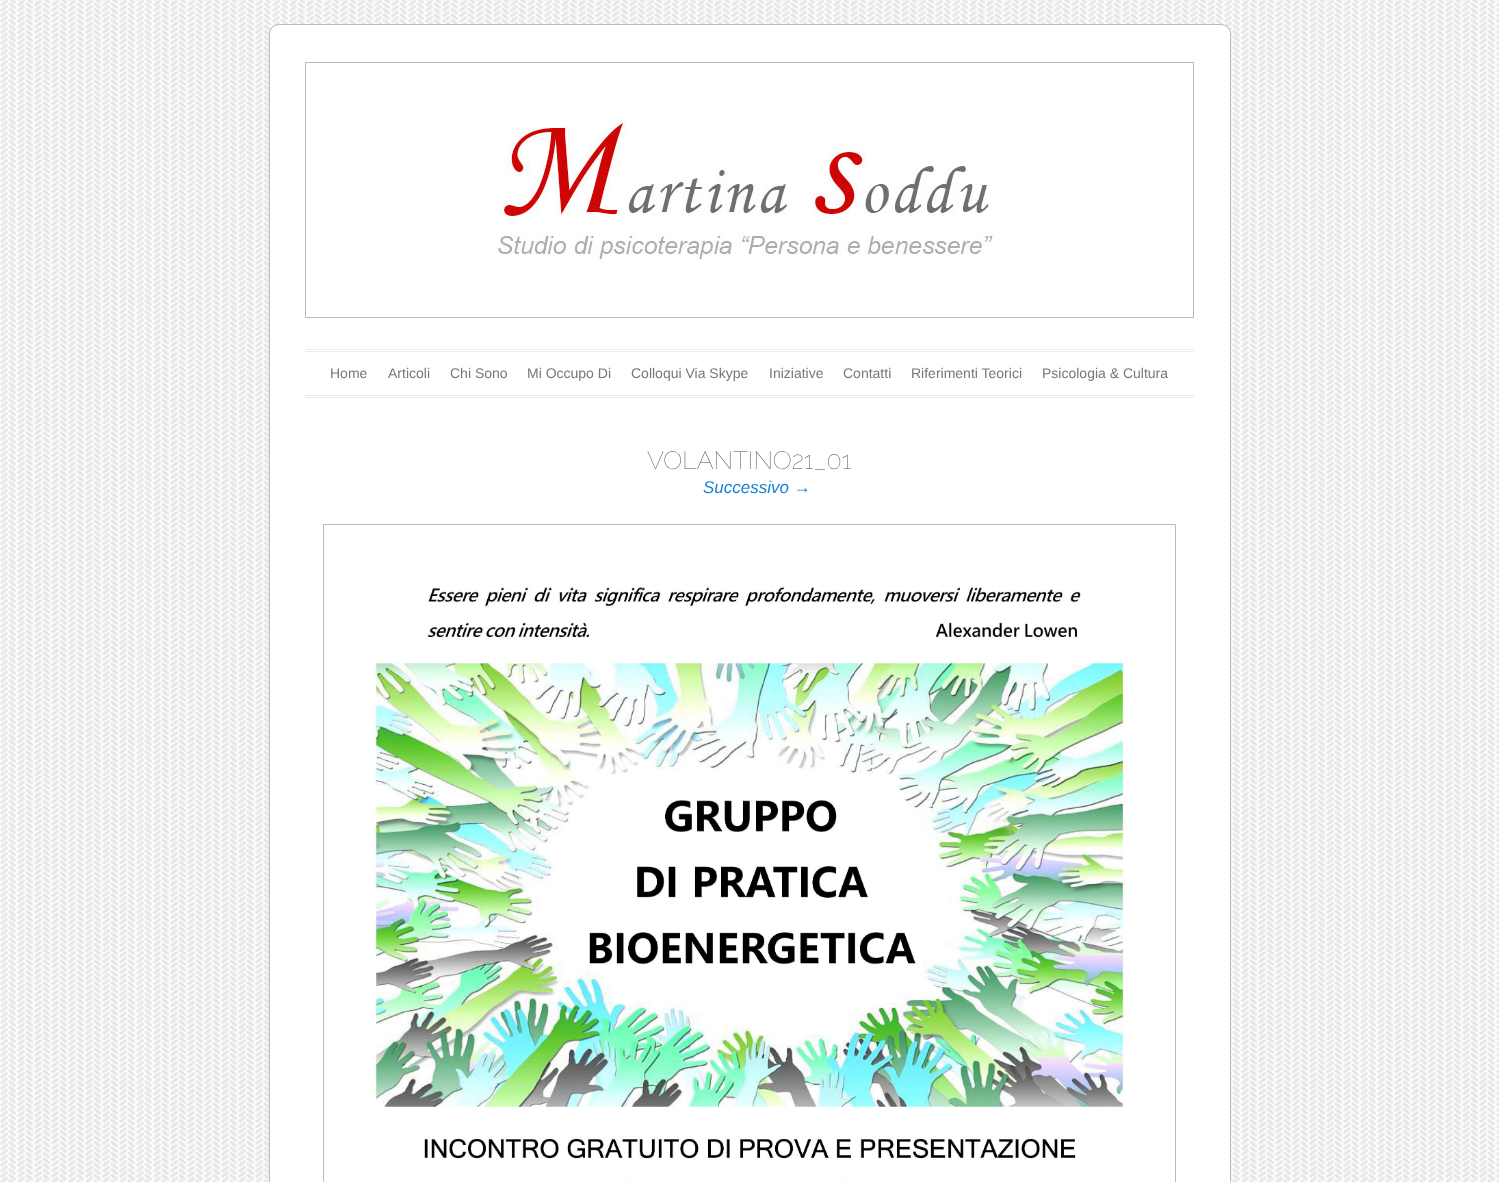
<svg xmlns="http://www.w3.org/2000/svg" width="1499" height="1182">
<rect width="100%" height="100%" fill="#fff"/>
<image x="0" y="0" width="1499" height="1182" href="media/1.png"/>
<rect x="269.5" y="24.5" width="961" height="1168" rx="9.5" fill="#fff" stroke="#bbb"/>
<rect x="305.5" y="62.5" width="888" height="255" fill="none" stroke="#bbb"/>
<image x="498" y="119" width="496" height="142" href="media/2.png"/>
<rect x="305" y="349" width="890" height="1" fill="#eee"/>
<rect x="305" y="351" width="890" height="1" fill="#eee"/>
<rect x="305" y="395" width="890" height="1" fill="#eee"/>
<rect x="305" y="397" width="890" height="1" fill="#eee"/>
<text x="330" y="378" style="font-family:Liberation Sans;font-size:14px;fill:#777">Home</text>
<text x="388" y="378" style="font-family:Liberation Sans;font-size:14px;fill:#777">Articoli</text>
<text x="450" y="378" style="font-family:Liberation Sans;font-size:14px;fill:#777">Chi Sono</text>
<text x="527" y="378" style="font-family:Liberation Sans;font-size:14px;fill:#777">Mi Occupo Di</text>
<text x="631" y="378" style="font-family:Liberation Sans;font-size:14px;fill:#777">Colloqui Via Skype</text>
<text x="769" y="378" style="font-family:Liberation Sans;font-size:14px;fill:#777">Iniziative</text>
<text x="843" y="378" style="font-family:Liberation Sans;font-size:14px;fill:#777">Contatti</text>
<text x="911" y="378" style="font-family:Liberation Sans;font-size:14px;fill:#777">Riferimenti Teorici</text>
<text x="1042" y="378" style="font-family:Liberation Sans;font-size:14px;fill:#777">Psicologia &amp; Cultura</text>
<text x="647" y="469" style="font-family:Raleway;font-size:25px;font-weight:100;fill:#4a4a4a">VOLANTINO21_01</text>
<text x="703" y="493" style="font-family:Liberation Sans;font-size:17px;font-style:italic;fill:#1982d1">Successivo →</text>
<rect x="323.5" y="524.5" width="852" height="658" fill="none" stroke="#bbb"/>
<image x="374" y="586" width="751" height="596" href="media/3.png"/>
</svg>
